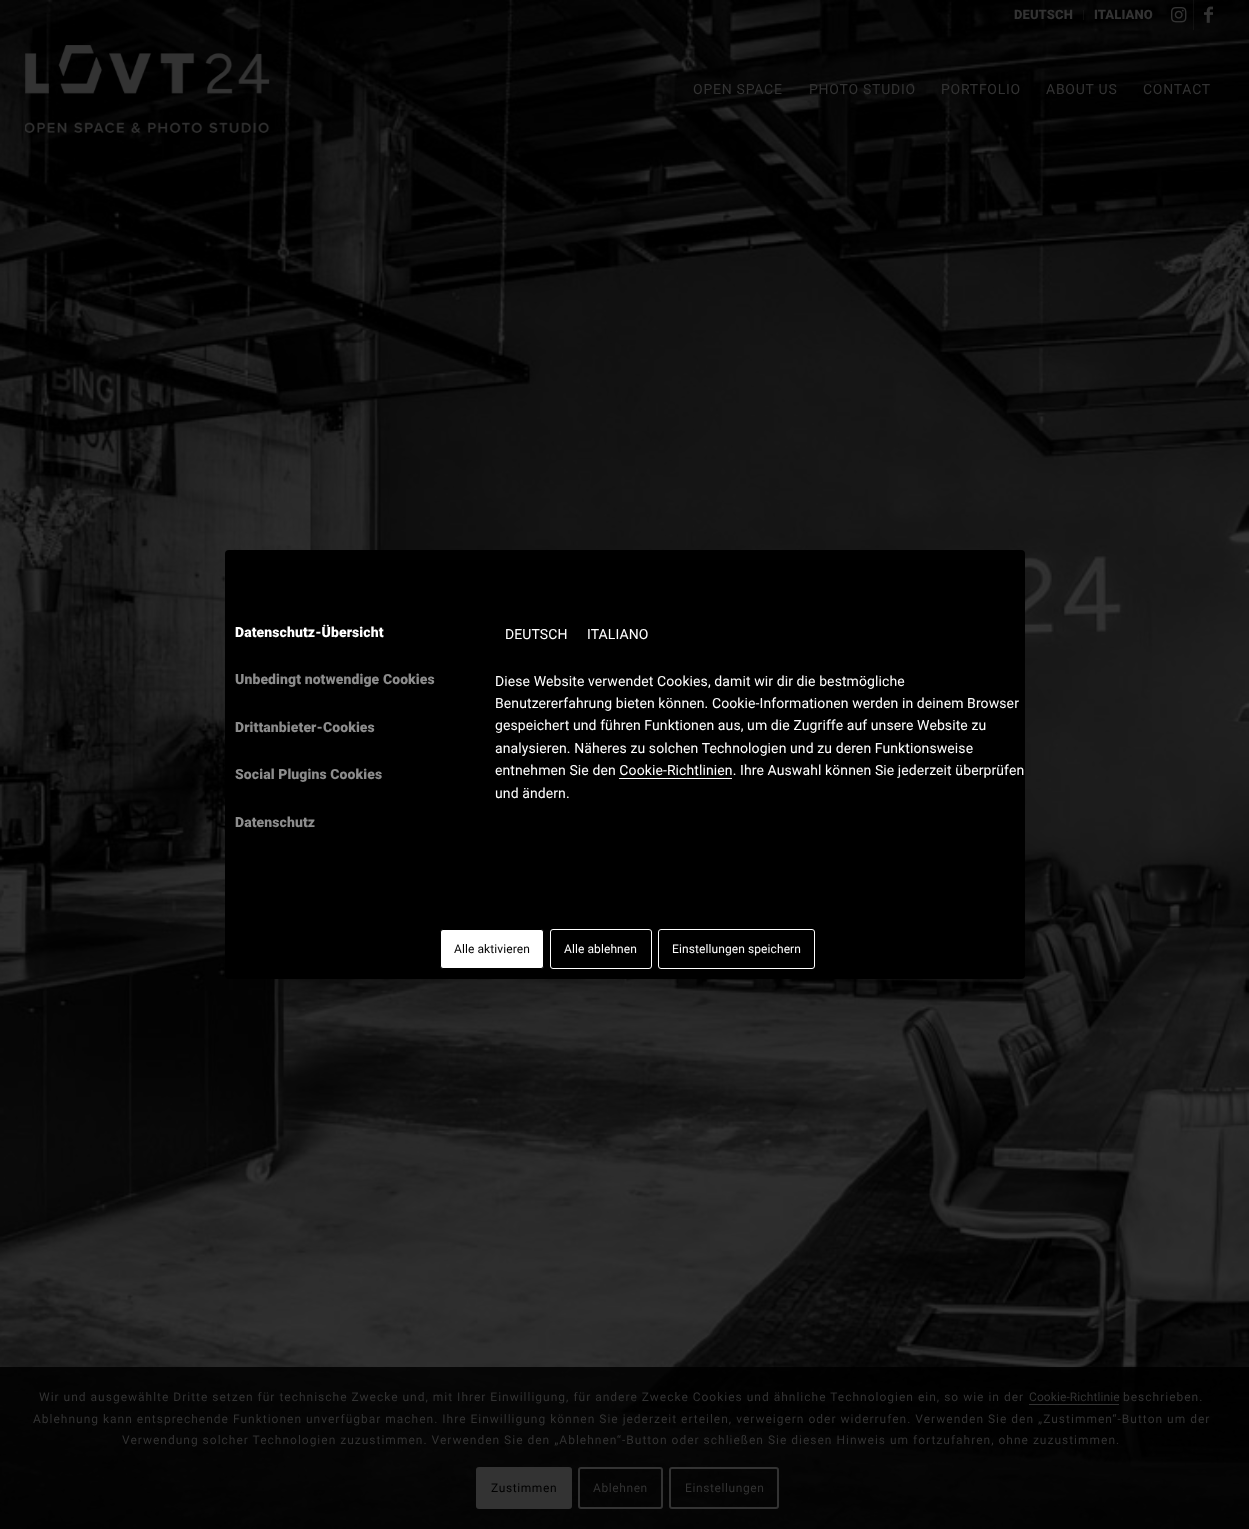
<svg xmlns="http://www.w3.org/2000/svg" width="1249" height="1529">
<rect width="100%" height="100%" fill="#fff"/>
<image x="0" y="0" width="1249" height="1529" href="media/1.png"/>
<rect x="1083" y="10" width="1" height="10" fill="#33333340"/>
<text x="1014" y="19" style="font-family:Roboto;font-size:13px;font-weight:900;letter-spacing:0.1px;fill:#333">DEUTSCH</text>
<text x="1094" y="19" style="font-family:Roboto;font-size:13px;font-weight:900;letter-spacing:0.1px;fill:#333">ITALIANO</text>
<rect x="1193" width="1" height="30" fill="#33333340"/>
<image x="1171" y="7" width="16" height="16" href="media/2.png"/>
<image x="1204" y="6" width="9" height="17" href="media/3.png"/>
<image x="25" y="45" width="245" height="88" href="media/4.png"/>
<text x="693" y="94" style="font-family:Roboto;font-size:14px;letter-spacing:0.75px;fill:#333">OPEN SPACE</text>
<text x="809" y="94" style="font-family:Roboto;font-size:14px;letter-spacing:0.75px;fill:#333">PHOTO STUDIO</text>
<text x="941" y="94" style="font-family:Roboto;font-size:14px;letter-spacing:0.75px;fill:#333">PORTFOLIO</text>
<text x="1046" y="94" style="font-family:Roboto;font-size:14px;letter-spacing:0.75px;fill:#333">ABOUT US</text>
<text x="1143" y="94" style="font-family:Roboto;font-size:14px;letter-spacing:0.75px;fill:#333">CONTACT</text>
<rect x="225" y="550" width="800" height="429" rx="4" fill="#000"/>
<text x="235" y="637" style="font-family:Roboto;font-size:14px;font-weight:900;letter-spacing:0.1px;fill:#fff">Datenschutz-Übersicht</text>
<text x="235" y="684" style="font-family:Roboto;font-size:14px;font-weight:900;letter-spacing:0.1px;fill:#8c8c8c">Unbedingt notwendige Cookies</text>
<text x="235" y="732" style="font-family:Roboto;font-size:14px;font-weight:900;letter-spacing:0.1px;fill:#8c8c8c">Drittanbieter-Cookies</text>
<text x="235" y="779" style="font-family:Roboto;font-size:14px;font-weight:900;letter-spacing:0.1px;fill:#8c8c8c">Social Plugins Cookies</text>
<text x="235" y="827" style="font-family:Roboto;font-size:14px;font-weight:900;letter-spacing:0.1px;fill:#8c8c8c">Datenschutz</text>
<text x="505" y="639" style="font-family:Roboto;font-size:14px;letter-spacing:0.1px;fill:#fff">DEUTSCH</text>
<text x="587" y="639" style="font-family:Roboto;font-size:14px;letter-spacing:0.1px;fill:#fff">ITALIANO</text>
<text x="495" y="686" style="font-family:Roboto;font-size:14px;letter-spacing:0.1px;fill:#fff">Diese Website verwendet Cookies, damit wir dir die bestmögliche</text>
<text x="495" y="708" style="font-family:Roboto;font-size:14px;letter-spacing:0.1px;fill:#fff">Benutzererfahrung bieten können. Cookie-Informationen werden in deinem Browser</text>
<text x="495" y="730" style="font-family:Roboto;font-size:14px;letter-spacing:0.1px;fill:#fff">gespeichert und führen Funktionen aus, um die Zugriffe auf unsere Website zu</text>
<text x="495" y="753" style="font-family:Roboto;font-size:14px;letter-spacing:0.1px;fill:#fff">analysieren. Näheres zu solchen Technologien und zu deren Funktionsweise</text>
<text x="495" y="775" style="font-family:Roboto;font-size:14px;letter-spacing:0.1px;fill:#fff">entnehmen Sie den Cookie-Richtlinien. Ihre Auswahl können Sie jederzeit überprüfen</text>
<rect x="619" y="778" width="113" height="1" fill="#fff"/>
<text x="495" y="798" style="font-family:Roboto;font-size:14px;letter-spacing:0.1px;fill:#fff">und ändern.</text>
<rect x="440.5" y="929.5" width="103" height="39" rx="2.5" fill="#fff" stroke="#000"/>
<text x="454" y="953" style="font-family:Roboto;font-size:12px;letter-spacing:0.1px;fill:#000">Alle aktivieren</text>
<rect x="550.5" y="929.5" width="101" height="39" rx="2.5" fill="none" stroke="#fff"/>
<text x="564" y="953" style="font-family:Roboto;font-size:12px;letter-spacing:0.1px;fill:#fff">Alle ablehnen</text>
<rect x="658.5" y="929.5" width="156" height="39" rx="2.5" fill="none" stroke="#fff"/>
<text x="672" y="953" style="font-family:Roboto;font-size:12px;letter-spacing:0.1px;fill:#fff">Einstellungen speichern</text>
<rect y="1367" width="1249" height="162" fill="#000000d9"/>
<text x="39" y="1401" style="font-family:Roboto;font-size:12px;letter-spacing:1px;fill:#333">Wir und ausgewählte Dritte setzen für technische Zwecke und, mit Ihrer Einwilligung, für andere Zwecke Cookies und ähnliche Technologien ein, so wie in der</text>
<text x="1029" y="1401" style="font-family:Roboto;font-size:12px;letter-spacing:0.1px;fill:#333">Cookie-Richtlinie</text>
<rect x="1029" y="1404" width="90" height="1" fill="#333"/>
<text x="1123" y="1401" style="font-family:Roboto;font-size:12px;letter-spacing:1px;fill:#333">beschrieben.</text>
<text x="33" y="1423" style="font-family:Roboto;font-size:12px;letter-spacing:1px;fill:#333">Ablehnung kann entsprechende Funktionen unverfügbar machen. Ihre Einwilligung können Sie jederzeit erteilen, verweigern oder widerrufen. Verwenden Sie den „Zustimmen“-Button um der</text>
<text x="122" y="1444" style="font-family:Roboto;font-size:12px;letter-spacing:1px;fill:#333">Verwendung solcher Technologien zuzustimmen. Verwenden Sie den „Ablehnen“-Button oder schließen Sie diesen Hinweis um fortzufahren, ohne zuzustimmen.</text>
<rect x="476" y="1467" width="96" height="42" rx="3" fill="#333"/>
<text x="491" y="1492" style="font-family:Roboto;font-size:12px;letter-spacing:0.6px;fill:#000">Zustimmen</text>
<rect x="579" y="1468" width="83" height="40" rx="2" fill="none" stroke="#333" stroke-width="2"/>
<text x="593" y="1492" style="font-family:Roboto;font-size:12px;letter-spacing:0.6px;fill:#333">Ablehnen</text>
<rect x="670" y="1468" width="108" height="40" rx="2" fill="none" stroke="#333" stroke-width="2"/>
<text x="685" y="1492" style="font-family:Roboto;font-size:12px;letter-spacing:0.6px;fill:#333">Einstellungen</text>
</svg>
